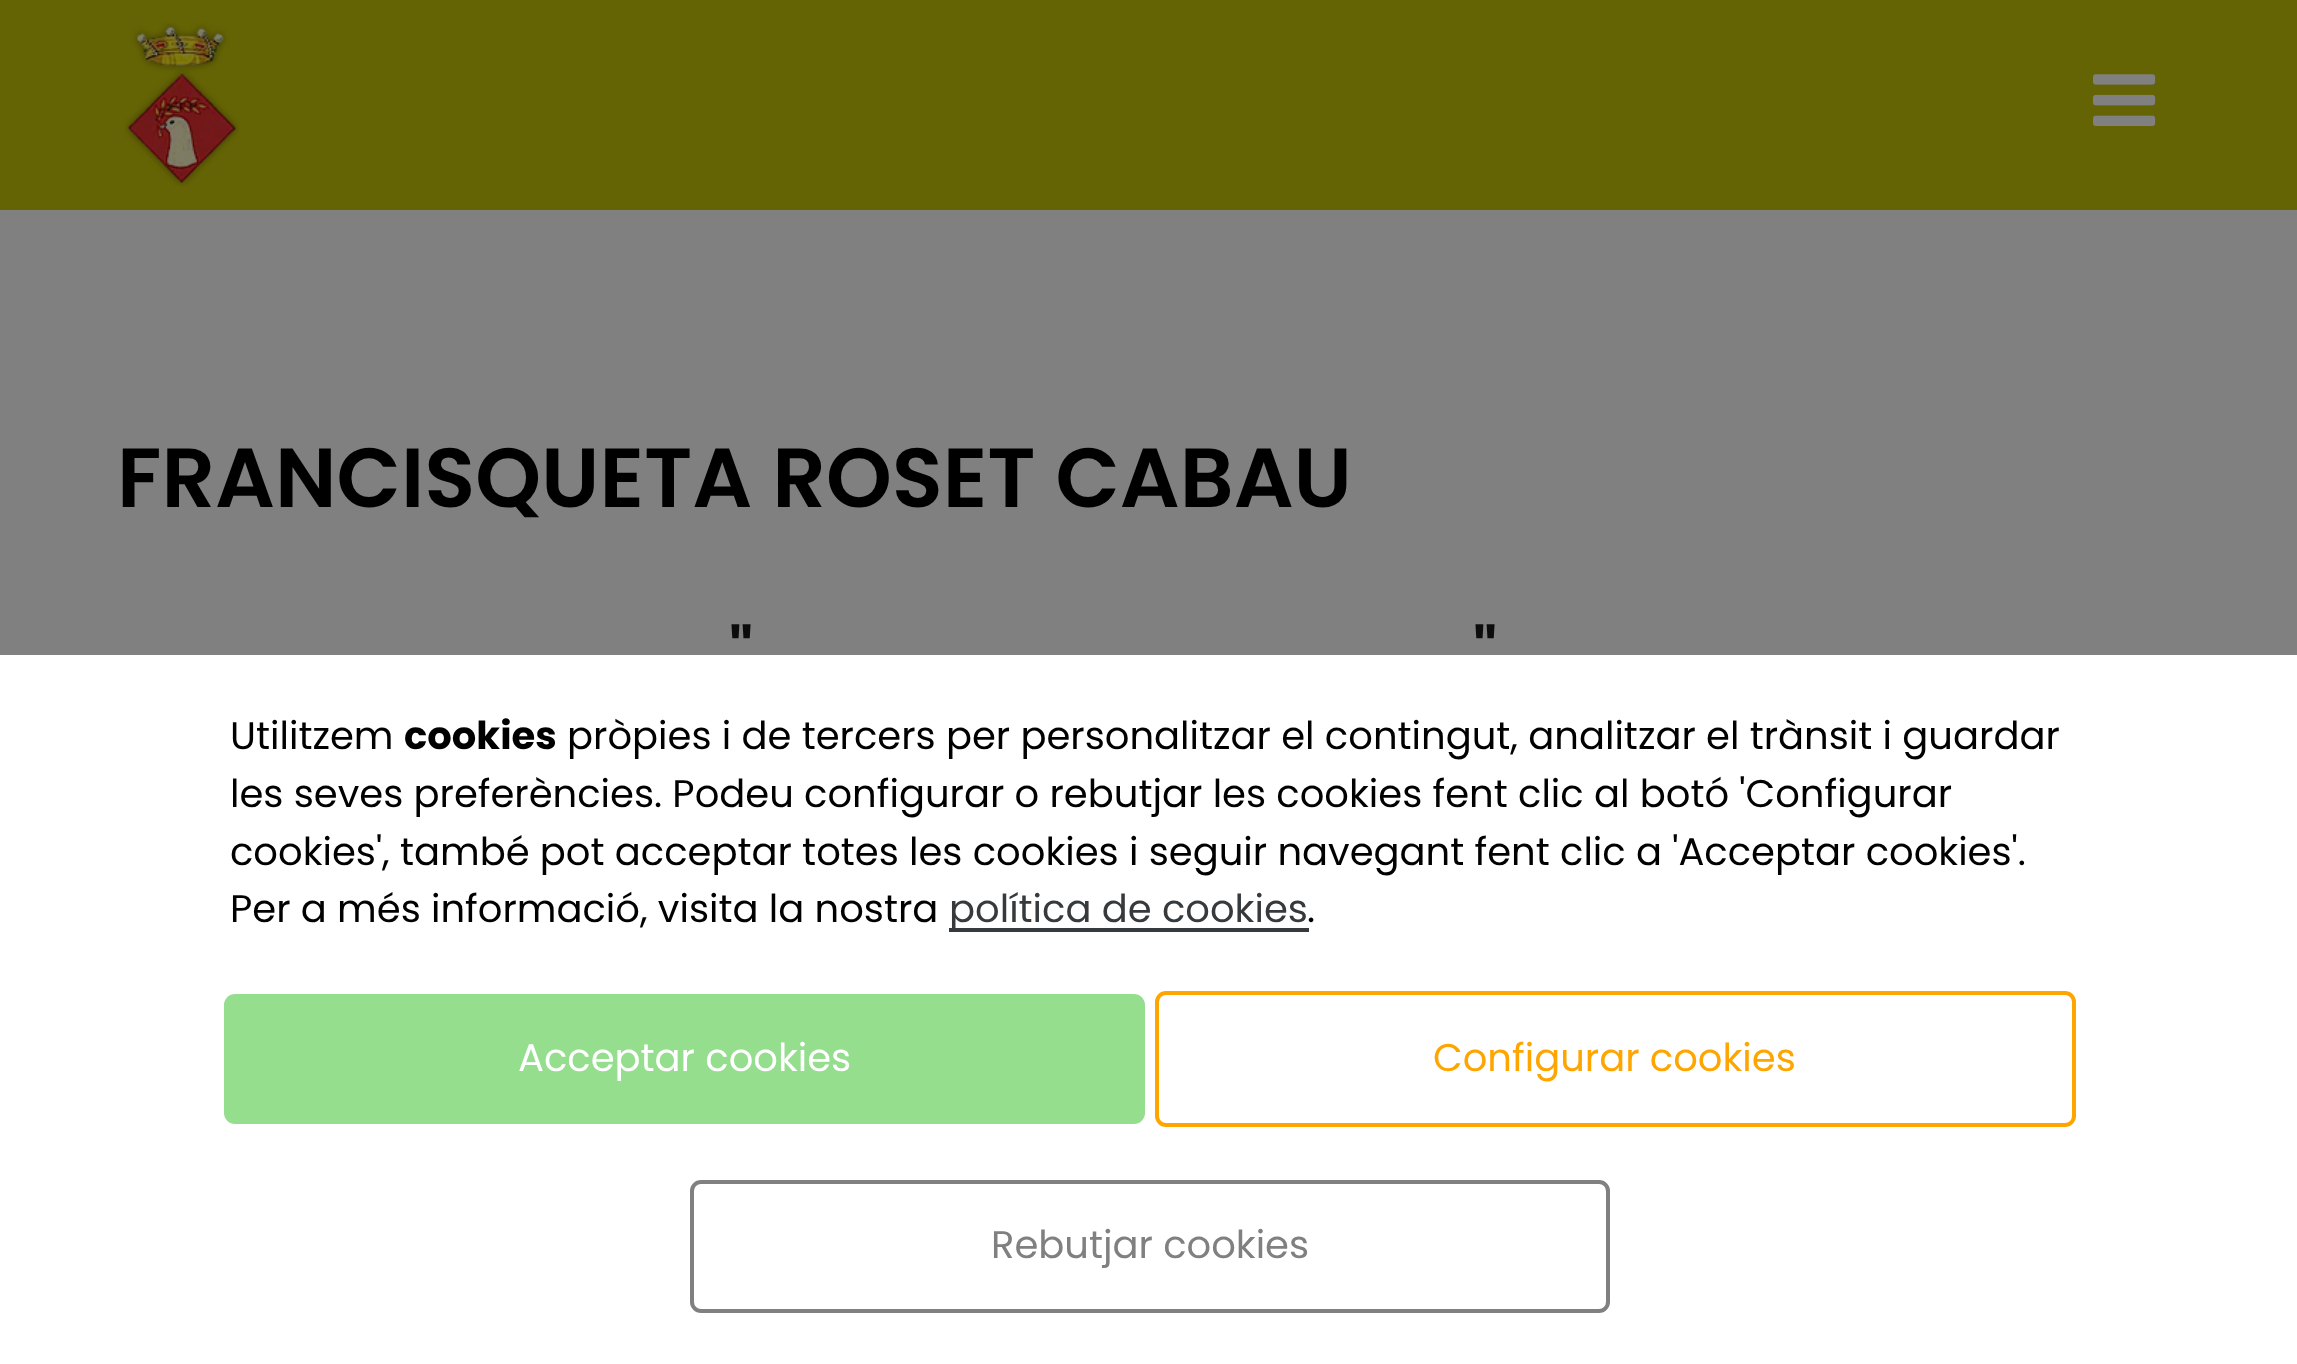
<svg xmlns="http://www.w3.org/2000/svg" width="2297" height="1364">
<rect width="100%" height="100%" fill="#808080"/>
<rect width="2297" height="210" fill="#656405"/>
<image x="124" y="22" width="116" height="165" href="media/1.png"/>
<image x="2093" y="74" width="63" height="52" href="media/2.png"/>
<text x="117" y="507" style="font-family:Poppins;font-size:83.75px;font-weight:600;fill:#000">FRANCISQUETA ROSET CABAU</text>
<text x="729" y="677" style="font-family:Poppins;font-size:66px;font-weight:600;fill:#0c0c0c">"</text>
<text x="1473" y="677" style="font-family:Poppins;font-size:66px;font-weight:600;fill:#0c0c0c">"</text>
<rect y="655" width="2297" height="709" fill="#fff"/>
<text x="230" y="749" style="font-family:Poppins;font-size:38.5px;fill:#000">Utilitzem</text>
<text x="404" y="749" style="font-family:Poppins;font-size:38.5px;font-weight:bold;fill:#000">cookies</text>
<text x="567" y="749" style="font-family:Poppins;font-size:38.5px;fill:#000">pròpies i de tercers per personalitzar el contingut, analitzar el trànsit i guardar</text>
<text x="230" y="807" style="font-family:Poppins;font-size:38.5px;fill:#000">les seves preferències. Podeu configurar o rebutjar les cookies fent clic al botó 'Configurar</text>
<text x="230" y="865" style="font-family:Poppins;font-size:38.5px;fill:#000">cookies', també pot acceptar totes les cookies i seguir navegant fent clic a 'Acceptar cookies'.</text>
<text x="230" y="922" style="font-family:Poppins;font-size:38.5px;fill:#000">Per a més informació, visita la nostra</text>
<rect x="949" y="928" width="360" height="4" fill="#373a3c"/>
<text x="949" y="922" style="font-family:Poppins;font-size:38.5px;fill:#373a3c">política de cookies</text>
<text x="1307" y="922" style="font-family:Poppins;font-size:38.5px;fill:#000">.</text>
<rect x="224" y="994" width="921" height="130" rx="11" fill="#95de8e"/>
<text x="518" y="1071" style="font-family:Poppins;font-size:38.5px;fill:#fff">Acceptar cookies</text>
<rect x="1157" y="993" width="917" height="132" rx="9" fill="none" stroke="#ffa500" stroke-width="4"/>
<text x="1433" y="1071" style="font-family:Poppins;font-size:38.5px;fill:#ffa500">Configurar cookies</text>
<rect x="692" y="1182" width="916" height="129" rx="9" fill="none" stroke="#808080" stroke-width="4"/>
<text x="991" y="1258" style="font-family:Poppins;font-size:38.5px;fill:#808080">Rebutjar cookies</text>
</svg>
